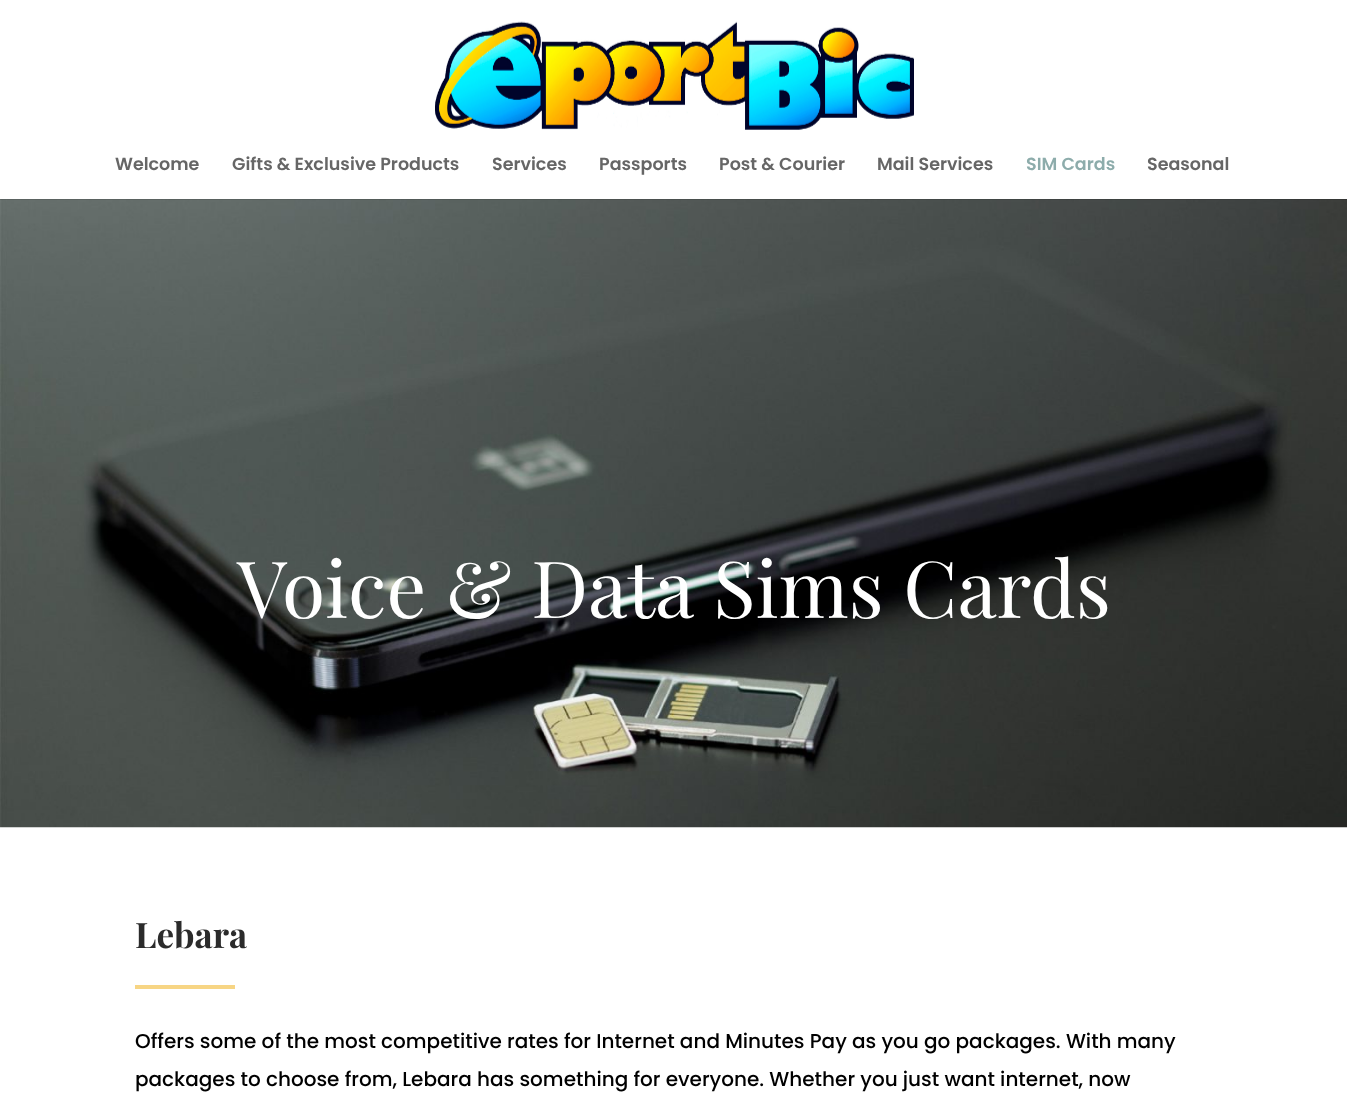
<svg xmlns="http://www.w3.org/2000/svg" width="1347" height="1103">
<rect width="100%" height="100%" fill="#fff"/>
<image x="0" y="199" width="1347" height="629" href="media/2.png"/>
<path d="M0 199v1h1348v-199v198z" fill="#0000001a"/>
<image x="435" y="21" width="479" height="109" href="media/1.png"/>
<text x="115" y="170" style="font-family:Poppins;font-size:17.5px;font-weight:600;fill:#666">Welcome</text>
<text x="232" y="170" style="font-family:Poppins;font-size:17.5px;font-weight:600;fill:#666">Gifts &amp; Exclusive Products</text>
<text x="492" y="170" style="font-family:Poppins;font-size:17.5px;font-weight:600;fill:#666">Services</text>
<text x="599" y="170" style="font-family:Poppins;font-size:17.5px;font-weight:600;fill:#666">Passports</text>
<text x="719" y="170" style="font-family:Poppins;font-size:17.5px;font-weight:600;fill:#666">Post &amp; Courier</text>
<text x="877" y="170" style="font-family:Poppins;font-size:17.5px;font-weight:600;fill:#666">Mail Services</text>
<text x="1026" y="170" style="font-family:Poppins;font-size:17.5px;font-weight:600;fill:#8dacab">SIM Cards</text>
<text x="1147" y="170" style="font-family:Poppins;font-size:17.5px;font-weight:600;fill:#666">Seasonal</text>
<text x="237" y="618" style="font-family:Playfair Display;font-size:78.75px;fill:#fff">Voice &amp; Data Sims Cards</text>
<text x="135" y="948" style="font-family:Playfair Display;font-size:35px;font-weight:bold;fill:#2b2b2b">Lebara</text>
<rect x="135" y="985" width="100" height="4" fill="#f7d584"/>
<text x="135" y="1048" style="font-family:Poppins;font-size:20px;font-weight:500;fill:#000">Offers some of the most competitive rates for Internet and Minutes Pay as you go packages. With many</text>
<text x="135" y="1086" style="font-family:Poppins;font-size:20px;font-weight:500;fill:#000">packages to choose from, Lebara has something for everyone. Whether you just want internet, now</text>
</svg>
